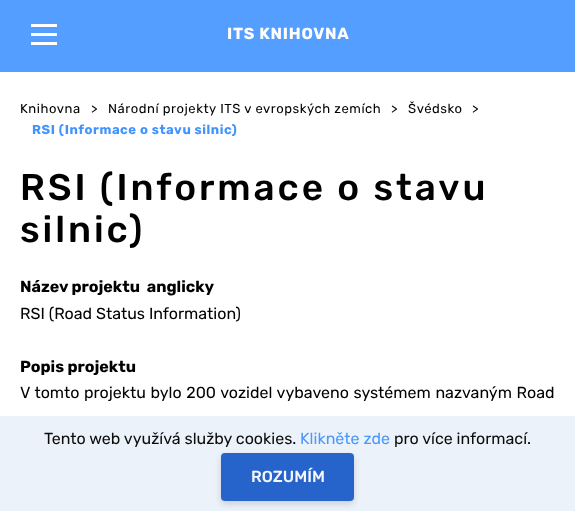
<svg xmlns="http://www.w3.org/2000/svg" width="575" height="511">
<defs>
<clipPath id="clip1"><path d="M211 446h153v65h-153zm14 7h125c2 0 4 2 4 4v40c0 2-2 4-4 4h-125c-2 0-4-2-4-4v-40c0-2 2-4 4-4z" clip-rule="evenodd"/></clipPath>
</defs>
<rect width="100%" height="100%" fill="#fff"/>
<rect y="455" width="575" height="56" fill="#ecf2f9"/>
<rect width="575" height="72" fill="#549eff"/>
<rect x="31" y="24" width="26" height="3" fill="#fff"/>
<rect x="31" y="33" width="26" height="3" fill="#fff"/>
<rect x="31" y="42" width="26" height="3" fill="#fff"/>
<text x="227" y="39" style="font-family:Rubik;font-size:16px;font-weight:bold;letter-spacing:0.75px;fill:#fff">ITS KNIHOVNA</text>
<text x="20" y="113" style="font-family:Rubik;font-size:13px;letter-spacing:0.55px;fill:#000">Knihovna</text>
<text x="91" y="113" style="font-family:Rubik;font-size:13px;letter-spacing:0.55px;fill:#000">&gt;</text>
<text x="108" y="113" style="font-family:Rubik;font-size:13px;letter-spacing:0.55px;fill:#000">Národní projekty ITS v evropských zemích</text>
<text x="391" y="113" style="font-family:Rubik;font-size:13px;letter-spacing:0.55px;fill:#000">&gt;</text>
<text x="408" y="113" style="font-family:Rubik;font-size:13px;letter-spacing:0.55px;fill:#000">Švédsko</text>
<text x="472" y="113" style="font-family:Rubik;font-size:13px;letter-spacing:0.55px;fill:#000">&gt;</text>
<text x="32" y="134" style="font-family:Rubik;font-size:13px;font-weight:bold;letter-spacing:0.55px;fill:#4193ff">RSI (Informace o stavu silnic)</text>
<text x="20" y="200" style="font-family:Rubik;font-size:37px;font-weight:500;letter-spacing:2.9px;fill:#000">RSI (Informace o stavu</text>
<text x="20" y="242" style="font-family:Rubik;font-size:37px;font-weight:500;letter-spacing:2.9px;fill:#000">silnic)</text>
<text x="20" y="292" style="font-family:Rubik;font-size:16px;font-weight:bold;fill:#000" xml:space="preserve">Název projektu  anglicky</text>
<text x="20" y="319" style="font-family:Rubik;font-size:16px;fill:#000">RSI (Road Status Information)</text>
<text x="20" y="372" style="font-family:Rubik;font-size:16px;font-weight:bold;fill:#000">Popis projektu</text>
<text x="20" y="398" word-spacing="0.75" style="font-family:Rubik;font-size:16px;fill:#000">V tomto projektu bylo 200 vozidel vybaveno systémem nazvaným Road</text>
<rect y="416" width="575" height="39" fill="#ebf1f9f2"/>
<text x="44" y="444" style="font-family:Rubik;font-size:16px;fill:#0c0c0c">Tento web využívá služby cookies.</text>
<text x="300" y="444" style="font-family:Rubik;font-size:16px;fill:#4998ff">Klikněte zde</text>
<text x="394" y="444" style="font-family:Rubik;font-size:16px;fill:#0c0c0c">pro více informací.</text>
<g clip-path="url(#clip1)">
<rect x="221" y="456" width="133" height="48" rx="4" fill="#00000024" filter="blur(3px)"/>
</g>
<rect x="221" y="453" width="133" height="48" rx="4" fill="#1b5cc9f2"/>
<text x="251" y="482" style="font-family:Rubik;font-size:16px;font-weight:500;fill:#f4f7fc">ROZUMÍM</text>
</svg>
